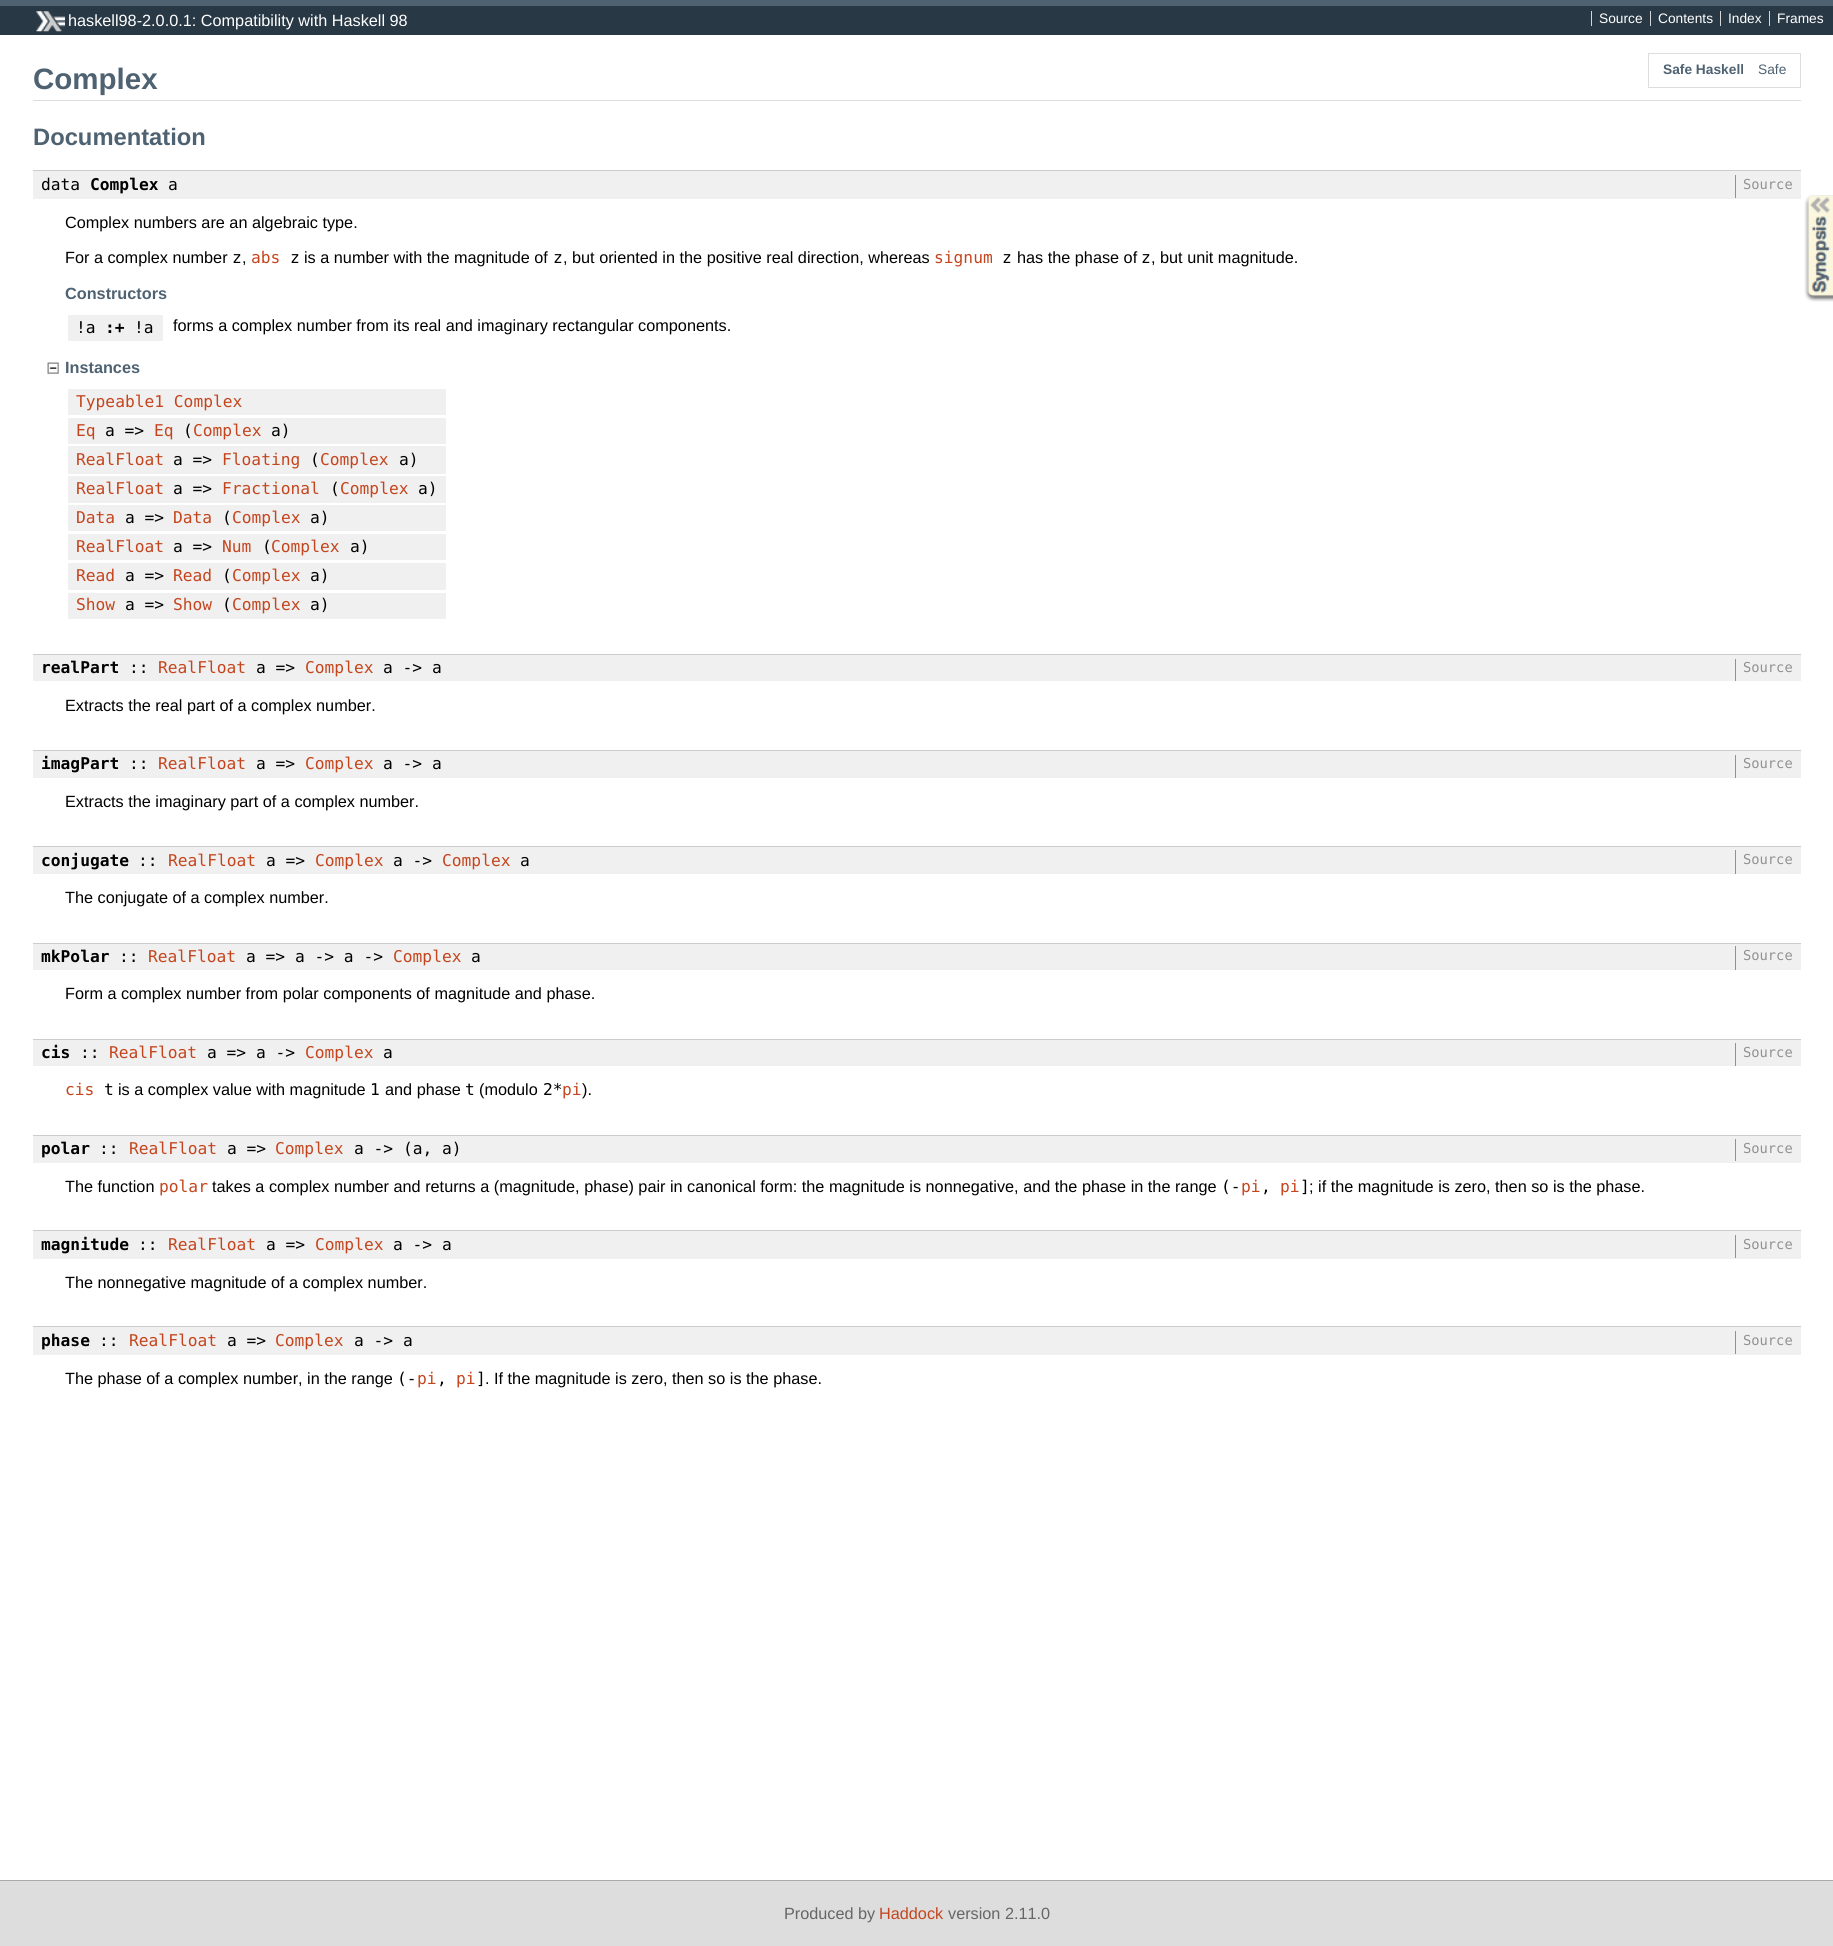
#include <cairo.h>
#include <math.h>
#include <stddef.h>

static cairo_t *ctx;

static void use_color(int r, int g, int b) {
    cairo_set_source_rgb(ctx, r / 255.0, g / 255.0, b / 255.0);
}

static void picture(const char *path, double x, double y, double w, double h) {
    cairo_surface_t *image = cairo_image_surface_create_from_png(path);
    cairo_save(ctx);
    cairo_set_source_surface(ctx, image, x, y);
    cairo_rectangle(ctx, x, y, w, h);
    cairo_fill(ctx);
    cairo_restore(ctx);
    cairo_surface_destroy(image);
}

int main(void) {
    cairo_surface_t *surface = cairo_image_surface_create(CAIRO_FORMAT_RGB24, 1833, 1946);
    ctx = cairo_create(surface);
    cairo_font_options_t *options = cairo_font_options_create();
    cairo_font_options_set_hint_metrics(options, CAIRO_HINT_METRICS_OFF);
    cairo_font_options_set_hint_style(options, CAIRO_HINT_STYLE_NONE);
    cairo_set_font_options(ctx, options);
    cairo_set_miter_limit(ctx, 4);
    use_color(255, 255, 255);
    cairo_paint(ctx);
    use_color(41, 56, 69);
    cairo_rectangle(ctx, 0, 6, 1833, 29);
    cairo_fill(ctx);
    use_color(78, 98, 114);
    cairo_rectangle(ctx, 0, 0, 1833, 6);
    cairo_fill(ctx);
    picture("img1.png", 36, 11, 29, 21);
    cairo_select_font_face(ctx, "Liberation Sans", CAIRO_FONT_SLANT_NORMAL, CAIRO_FONT_WEIGHT_NORMAL);
    cairo_set_font_size(ctx, 16.25);
    use_color(255, 255, 255);
    cairo_move_to(ctx, 68, 26);
    cairo_show_text(ctx, "haskell98-2.0.0.1: Compatibility with Haskell 98");
    cairo_set_font_size(ctx, 13.75);
    cairo_move_to(ctx, 1599, 23);
    cairo_show_text(ctx, "Source");
    use_color(213, 213, 213);
    cairo_rectangle(ctx, 1591, 11, 1, 15);
    cairo_fill(ctx);
    use_color(255, 255, 255);
    cairo_move_to(ctx, 1658, 23);
    cairo_show_text(ctx, "Contents");
    use_color(213, 213, 213);
    cairo_rectangle(ctx, 1650, 11, 1, 15);
    cairo_fill(ctx);
    use_color(255, 255, 255);
    cairo_move_to(ctx, 1728, 23);
    cairo_show_text(ctx, "Index");
    use_color(213, 213, 213);
    cairo_rectangle(ctx, 1720, 11, 1, 15);
    cairo_fill(ctx);
    use_color(255, 255, 255);
    cairo_move_to(ctx, 1777, 23);
    cairo_show_text(ctx, "Frames");
    use_color(213, 213, 213);
    cairo_rectangle(ctx, 1769, 11, 1, 15);
    cairo_fill(ctx);
    use_color(221, 221, 221);
    cairo_rectangle(ctx, 33, 100, 1768, 1);
    cairo_fill(ctx);
    cairo_select_font_face(ctx, "Liberation Sans", CAIRO_FONT_SLANT_NORMAL, CAIRO_FONT_WEIGHT_BOLD);
    cairo_set_font_size(ctx, 29.5);
    use_color(78, 98, 114);
    cairo_move_to(ctx, 33, 89);
    cairo_show_text(ctx, "Complex");
    cairo_rectangle(ctx, 1648.5, 53.5, 152, 34);
    use_color(221, 221, 221);
    cairo_set_line_width(ctx, 1);
    cairo_stroke(ctx);
    cairo_set_font_size(ctx, 13.75);
    use_color(78, 98, 114);
    cairo_move_to(ctx, 1663, 74);
    cairo_show_text(ctx, "Safe Haskell");
    cairo_select_font_face(ctx, "Liberation Sans", CAIRO_FONT_SLANT_NORMAL, CAIRO_FONT_WEIGHT_NORMAL);
    cairo_move_to(ctx, 1758, 74);
    cairo_show_text(ctx, "Safe");
    cairo_select_font_face(ctx, "Liberation Sans", CAIRO_FONT_SLANT_NORMAL, CAIRO_FONT_WEIGHT_BOLD);
    cairo_set_font_size(ctx, 23.75);
    cairo_move_to(ctx, 33, 145);
    cairo_show_text(ctx, "Documentation");
    use_color(240, 240, 240);
    cairo_rectangle(ctx, 33, 171, 1768, 28);
    cairo_fill(ctx);
    use_color(204, 204, 204);
    cairo_rectangle(ctx, 33, 170, 1768, 1);
    cairo_fill(ctx);
    cairo_select_font_face(ctx, "DejaVu Sans Mono", CAIRO_FONT_SLANT_NORMAL, CAIRO_FONT_WEIGHT_NORMAL);
    cairo_set_font_size(ctx, 16.25);
    use_color(0, 0, 0);
    cairo_move_to(ctx, 41, 190);
    cairo_show_text(ctx, "data");
    cairo_select_font_face(ctx, "DejaVu Sans Mono", CAIRO_FONT_SLANT_NORMAL, CAIRO_FONT_WEIGHT_BOLD);
    cairo_move_to(ctx, 90, 190);
    cairo_show_text(ctx, "Complex");
    cairo_select_font_face(ctx, "DejaVu Sans Mono", CAIRO_FONT_SLANT_NORMAL, CAIRO_FONT_WEIGHT_NORMAL);
    cairo_move_to(ctx, 168, 190);
    cairo_show_text(ctx, "a");
    use_color(145, 145, 145);
    cairo_rectangle(ctx, 1735, 175, 1, 23);
    cairo_fill(ctx);
    cairo_set_font_size(ctx, 13.75);
    cairo_move_to(ctx, 1743, 189);
    cairo_show_text(ctx, "Source");
    cairo_select_font_face(ctx, "Liberation Sans", CAIRO_FONT_SLANT_NORMAL, CAIRO_FONT_WEIGHT_NORMAL);
    cairo_set_font_size(ctx, 16.25);
    use_color(0, 0, 0);
    cairo_move_to(ctx, 65, 228);
    cairo_show_text(ctx, "Complex numbers are an algebraic type.");
    cairo_move_to(ctx, 65, 263);
    cairo_show_text(ctx, "For a complex number");
    cairo_select_font_face(ctx, "DejaVu Sans Mono", CAIRO_FONT_SLANT_NORMAL, CAIRO_FONT_WEIGHT_NORMAL);
    cairo_move_to(ctx, 232, 263);
    cairo_show_text(ctx, "z");
    use_color(196, 69, 29);
    cairo_move_to(ctx, 251, 263);
    cairo_show_text(ctx, "abs");
    use_color(0, 0, 0);
    cairo_move_to(ctx, 290, 263);
    cairo_show_text(ctx, "z");
    cairo_select_font_face(ctx, "Liberation Sans", CAIRO_FONT_SLANT_NORMAL, CAIRO_FONT_WEIGHT_NORMAL);
    cairo_move_to(ctx, 304, 263);
    cairo_show_text(ctx, "is a number with the magnitude of");
    cairo_select_font_face(ctx, "DejaVu Sans Mono", CAIRO_FONT_SLANT_NORMAL, CAIRO_FONT_WEIGHT_NORMAL);
    cairo_move_to(ctx, 553, 263);
    cairo_show_text(ctx, "z");
    cairo_select_font_face(ctx, "Liberation Sans", CAIRO_FONT_SLANT_NORMAL, CAIRO_FONT_WEIGHT_NORMAL);
    cairo_move_to(ctx, 563, 263);
    cairo_show_text(ctx, ", but oriented in the positive real direction, whereas");
    cairo_select_font_face(ctx, "DejaVu Sans Mono", CAIRO_FONT_SLANT_NORMAL, CAIRO_FONT_WEIGHT_NORMAL);
    use_color(196, 69, 29);
    cairo_move_to(ctx, 934, 263);
    cairo_show_text(ctx, "signum");
    use_color(0, 0, 0);
    cairo_move_to(ctx, 1002, 263);
    cairo_show_text(ctx, "z");
    cairo_select_font_face(ctx, "Liberation Sans", CAIRO_FONT_SLANT_NORMAL, CAIRO_FONT_WEIGHT_NORMAL);
    cairo_move_to(ctx, 1017, 263);
    cairo_show_text(ctx, "has the phase of");
    cairo_select_font_face(ctx, "DejaVu Sans Mono", CAIRO_FONT_SLANT_NORMAL, CAIRO_FONT_WEIGHT_NORMAL);
    cairo_move_to(ctx, 1141, 263);
    cairo_show_text(ctx, "z");
    cairo_select_font_face(ctx, "Liberation Sans", CAIRO_FONT_SLANT_NORMAL, CAIRO_FONT_WEIGHT_NORMAL);
    cairo_move_to(ctx, 1151, 263);
    cairo_show_text(ctx, ", but unit magnitude.");
    cairo_move_to(ctx, 242, 263);
    cairo_show_text(ctx, ",");
    cairo_select_font_face(ctx, "Liberation Sans", CAIRO_FONT_SLANT_NORMAL, CAIRO_FONT_WEIGHT_BOLD);
    use_color(78, 98, 114);
    cairo_move_to(ctx, 65, 299);
    cairo_show_text(ctx, "Constructors");
    use_color(240, 240, 240);
    cairo_rectangle(ctx, 68, 315, 95, 26);
    cairo_fill(ctx);
    cairo_select_font_face(ctx, "DejaVu Sans Mono", CAIRO_FONT_SLANT_NORMAL, CAIRO_FONT_WEIGHT_NORMAL);
    use_color(0, 0, 0);
    cairo_move_to(ctx, 76, 333);
    cairo_show_text(ctx, "!a");
    cairo_select_font_face(ctx, "DejaVu Sans Mono", CAIRO_FONT_SLANT_NORMAL, CAIRO_FONT_WEIGHT_BOLD);
    cairo_move_to(ctx, 105, 333);
    cairo_show_text(ctx, ":+");
    cairo_select_font_face(ctx, "DejaVu Sans Mono", CAIRO_FONT_SLANT_NORMAL, CAIRO_FONT_WEIGHT_NORMAL);
    cairo_move_to(ctx, 134, 333);
    cairo_show_text(ctx, "!a");
    cairo_select_font_face(ctx, "Liberation Sans", CAIRO_FONT_SLANT_NORMAL, CAIRO_FONT_WEIGHT_NORMAL);
    cairo_move_to(ctx, 173, 331);
    cairo_show_text(ctx, "forms a complex number from its real and imaginary rectangular components.");
    picture("img2.png", 47, 362, 12, 12);
    cairo_select_font_face(ctx, "Liberation Sans", CAIRO_FONT_SLANT_NORMAL, CAIRO_FONT_WEIGHT_BOLD);
    use_color(78, 98, 114);
    cairo_move_to(ctx, 65, 373);
    cairo_show_text(ctx, "Instances");
    use_color(240, 240, 240);
    cairo_rectangle(ctx, 68, 389, 378, 26);
    cairo_fill(ctx);
    cairo_select_font_face(ctx, "DejaVu Sans Mono", CAIRO_FONT_SLANT_NORMAL, CAIRO_FONT_WEIGHT_NORMAL);
    use_color(196, 69, 29);
    cairo_move_to(ctx, 76, 407);
    cairo_show_text(ctx, "Typeable1 Complex");
    use_color(240, 240, 240);
    cairo_rectangle(ctx, 68, 418, 378, 26);
    cairo_fill(ctx);
    use_color(196, 69, 29);
    cairo_move_to(ctx, 76, 436);
    cairo_show_text(ctx, "Eq");
    use_color(0, 0, 0);
    cairo_move_to(ctx, 105, 436);
    cairo_show_text(ctx, "a =>");
    use_color(196, 69, 29);
    cairo_move_to(ctx, 154, 436);
    cairo_show_text(ctx, "Eq");
    use_color(0, 0, 0);
    cairo_move_to(ctx, 183, 436);
    cairo_show_text(ctx, "(");
    use_color(196, 69, 29);
    cairo_move_to(ctx, 193, 436);
    cairo_show_text(ctx, "Complex");
    use_color(0, 0, 0);
    cairo_move_to(ctx, 271, 436);
    cairo_show_text(ctx, "a)");
    use_color(240, 240, 240);
    cairo_rectangle(ctx, 68, 446, 378, 28);
    cairo_fill(ctx);
    use_color(196, 69, 29);
    cairo_move_to(ctx, 76, 465);
    cairo_show_text(ctx, "RealFloat");
    use_color(0, 0, 0);
    cairo_move_to(ctx, 173, 465);
    cairo_show_text(ctx, "a =>");
    use_color(196, 69, 29);
    cairo_move_to(ctx, 222, 465);
    cairo_show_text(ctx, "Floating");
    use_color(0, 0, 0);
    cairo_move_to(ctx, 310, 465);
    cairo_show_text(ctx, "(");
    use_color(196, 69, 29);
    cairo_move_to(ctx, 320, 465);
    cairo_show_text(ctx, "Complex");
    use_color(0, 0, 0);
    cairo_move_to(ctx, 399, 465);
    cairo_show_text(ctx, "a)");
    use_color(240, 240, 240);
    cairo_rectangle(ctx, 68, 476, 378, 27);
    cairo_fill(ctx);
    use_color(196, 69, 29);
    cairo_move_to(ctx, 76, 494);
    cairo_show_text(ctx, "RealFloat");
    use_color(0, 0, 0);
    cairo_move_to(ctx, 173, 494);
    cairo_show_text(ctx, "a =>");
    use_color(196, 69, 29);
    cairo_move_to(ctx, 222, 494);
    cairo_show_text(ctx, "Fractional");
    use_color(0, 0, 0);
    cairo_move_to(ctx, 330, 494);
    cairo_show_text(ctx, "(");
    use_color(196, 69, 29);
    cairo_move_to(ctx, 340, 494);
    cairo_show_text(ctx, "Complex");
    use_color(0, 0, 0);
    cairo_move_to(ctx, 418, 494);
    cairo_show_text(ctx, "a)");
    use_color(240, 240, 240);
    cairo_rectangle(ctx, 68, 505, 378, 26);
    cairo_fill(ctx);
    use_color(196, 69, 29);
    cairo_move_to(ctx, 76, 523);
    cairo_show_text(ctx, "Data");
    use_color(0, 0, 0);
    cairo_move_to(ctx, 125, 523);
    cairo_show_text(ctx, "a =>");
    use_color(196, 69, 29);
    cairo_move_to(ctx, 173, 523);
    cairo_show_text(ctx, "Data");
    use_color(0, 0, 0);
    cairo_move_to(ctx, 222, 523);
    cairo_show_text(ctx, "(");
    use_color(196, 69, 29);
    cairo_move_to(ctx, 232, 523);
    cairo_show_text(ctx, "Complex");
    use_color(0, 0, 0);
    cairo_move_to(ctx, 310, 523);
    cairo_show_text(ctx, "a)");
    use_color(240, 240, 240);
    cairo_rectangle(ctx, 68, 534, 378, 26);
    cairo_fill(ctx);
    use_color(196, 69, 29);
    cairo_move_to(ctx, 76, 552);
    cairo_show_text(ctx, "RealFloat");
    use_color(0, 0, 0);
    cairo_move_to(ctx, 173, 552);
    cairo_show_text(ctx, "a =>");
    use_color(196, 69, 29);
    cairo_move_to(ctx, 222, 552);
    cairo_show_text(ctx, "Num");
    use_color(0, 0, 0);
    cairo_move_to(ctx, 262, 552);
    cairo_show_text(ctx, "(");
    use_color(196, 69, 29);
    cairo_move_to(ctx, 271, 552);
    cairo_show_text(ctx, "Complex");
    use_color(0, 0, 0);
    cairo_move_to(ctx, 350, 552);
    cairo_show_text(ctx, "a)");
    use_color(240, 240, 240);
    cairo_rectangle(ctx, 68, 563, 378, 27);
    cairo_fill(ctx);
    use_color(196, 69, 29);
    cairo_move_to(ctx, 76, 581);
    cairo_show_text(ctx, "Read");
    use_color(0, 0, 0);
    cairo_move_to(ctx, 125, 581);
    cairo_show_text(ctx, "a =>");
    use_color(196, 69, 29);
    cairo_move_to(ctx, 173, 581);
    cairo_show_text(ctx, "Read");
    use_color(0, 0, 0);
    cairo_move_to(ctx, 222, 581);
    cairo_show_text(ctx, "(");
    use_color(196, 69, 29);
    cairo_move_to(ctx, 232, 581);
    cairo_show_text(ctx, "Complex");
    use_color(0, 0, 0);
    cairo_move_to(ctx, 310, 581);
    cairo_show_text(ctx, "a)");
    use_color(240, 240, 240);
    cairo_rectangle(ctx, 68, 593, 378, 26);
    cairo_fill(ctx);
    use_color(196, 69, 29);
    cairo_move_to(ctx, 76, 610);
    cairo_show_text(ctx, "Show");
    use_color(0, 0, 0);
    cairo_move_to(ctx, 125, 610);
    cairo_show_text(ctx, "a =>");
    use_color(196, 69, 29);
    cairo_move_to(ctx, 173, 610);
    cairo_show_text(ctx, "Show");
    use_color(0, 0, 0);
    cairo_move_to(ctx, 222, 610);
    cairo_show_text(ctx, "(");
    use_color(196, 69, 29);
    cairo_move_to(ctx, 232, 610);
    cairo_show_text(ctx, "Complex");
    use_color(0, 0, 0);
    cairo_move_to(ctx, 310, 610);
    cairo_show_text(ctx, "a)");
    use_color(240, 240, 240);
    cairo_rectangle(ctx, 33, 655, 1768, 26);
    cairo_fill(ctx);
    use_color(204, 204, 204);
    cairo_rectangle(ctx, 33, 654, 1768, 1);
    cairo_fill(ctx);
    cairo_select_font_face(ctx, "DejaVu Sans Mono", CAIRO_FONT_SLANT_NORMAL, CAIRO_FONT_WEIGHT_BOLD);
    use_color(0, 0, 0);
    cairo_move_to(ctx, 41, 673);
    cairo_show_text(ctx, "realPart");
    cairo_select_font_face(ctx, "DejaVu Sans Mono", CAIRO_FONT_SLANT_NORMAL, CAIRO_FONT_WEIGHT_NORMAL);
    cairo_move_to(ctx, 129, 673);
    cairo_show_text(ctx, "::");
    use_color(196, 69, 29);
    cairo_move_to(ctx, 158, 673);
    cairo_show_text(ctx, "RealFloat");
    use_color(0, 0, 0);
    cairo_move_to(ctx, 256, 673);
    cairo_show_text(ctx, "a =>");
    use_color(196, 69, 29);
    cairo_move_to(ctx, 305, 673);
    cairo_show_text(ctx, "Complex");
    use_color(0, 0, 0);
    cairo_move_to(ctx, 383, 673);
    cairo_show_text(ctx, "a -> a");
    use_color(145, 145, 145);
    cairo_rectangle(ctx, 1735, 659, 1, 22);
    cairo_fill(ctx);
    cairo_set_font_size(ctx, 13.75);
    cairo_move_to(ctx, 1743, 672);
    cairo_show_text(ctx, "Source");
    cairo_select_font_face(ctx, "Liberation Sans", CAIRO_FONT_SLANT_NORMAL, CAIRO_FONT_WEIGHT_NORMAL);
    cairo_set_font_size(ctx, 16.25);
    use_color(0, 0, 0);
    cairo_move_to(ctx, 65, 711);
    cairo_show_text(ctx, "Extracts the real part of a complex number.");
    use_color(240, 240, 240);
    cairo_rectangle(ctx, 33, 751, 1768, 27);
    cairo_fill(ctx);
    use_color(204, 204, 204);
    cairo_rectangle(ctx, 33, 750, 1768, 1);
    cairo_fill(ctx);
    cairo_select_font_face(ctx, "DejaVu Sans Mono", CAIRO_FONT_SLANT_NORMAL, CAIRO_FONT_WEIGHT_BOLD);
    use_color(0, 0, 0);
    cairo_move_to(ctx, 41, 769);
    cairo_show_text(ctx, "imagPart");
    cairo_select_font_face(ctx, "DejaVu Sans Mono", CAIRO_FONT_SLANT_NORMAL, CAIRO_FONT_WEIGHT_NORMAL);
    cairo_move_to(ctx, 129, 769);
    cairo_show_text(ctx, "::");
    use_color(196, 69, 29);
    cairo_move_to(ctx, 158, 769);
    cairo_show_text(ctx, "RealFloat");
    use_color(0, 0, 0);
    cairo_move_to(ctx, 256, 769);
    cairo_show_text(ctx, "a =>");
    use_color(196, 69, 29);
    cairo_move_to(ctx, 305, 769);
    cairo_show_text(ctx, "Complex");
    use_color(0, 0, 0);
    cairo_move_to(ctx, 383, 769);
    cairo_show_text(ctx, "a -> a");
    use_color(145, 145, 145);
    cairo_rectangle(ctx, 1735, 755, 1, 23);
    cairo_fill(ctx);
    cairo_set_font_size(ctx, 13.75);
    cairo_move_to(ctx, 1743, 768);
    cairo_show_text(ctx, "Source");
    cairo_select_font_face(ctx, "Liberation Sans", CAIRO_FONT_SLANT_NORMAL, CAIRO_FONT_WEIGHT_NORMAL);
    cairo_set_font_size(ctx, 16.25);
    use_color(0, 0, 0);
    cairo_move_to(ctx, 65, 807);
    cairo_show_text(ctx, "Extracts the imaginary part of a complex number.");
    use_color(240, 240, 240);
    cairo_rectangle(ctx, 33, 847, 1768, 27);
    cairo_fill(ctx);
    use_color(204, 204, 204);
    cairo_rectangle(ctx, 33, 846, 1768, 1);
    cairo_fill(ctx);
    cairo_select_font_face(ctx, "DejaVu Sans Mono", CAIRO_FONT_SLANT_NORMAL, CAIRO_FONT_WEIGHT_BOLD);
    use_color(0, 0, 0);
    cairo_move_to(ctx, 41, 866);
    cairo_show_text(ctx, "conjugate");
    cairo_select_font_face(ctx, "DejaVu Sans Mono", CAIRO_FONT_SLANT_NORMAL, CAIRO_FONT_WEIGHT_NORMAL);
    cairo_move_to(ctx, 138, 866);
    cairo_show_text(ctx, "::");
    use_color(196, 69, 29);
    cairo_move_to(ctx, 168, 866);
    cairo_show_text(ctx, "RealFloat");
    use_color(0, 0, 0);
    cairo_move_to(ctx, 266, 866);
    cairo_show_text(ctx, "a =>");
    use_color(196, 69, 29);
    cairo_move_to(ctx, 315, 866);
    cairo_show_text(ctx, "Complex");
    use_color(0, 0, 0);
    cairo_move_to(ctx, 393, 866);
    cairo_show_text(ctx, "a ->");
    use_color(196, 69, 29);
    cairo_move_to(ctx, 442, 866);
    cairo_show_text(ctx, "Complex");
    use_color(0, 0, 0);
    cairo_move_to(ctx, 520, 866);
    cairo_show_text(ctx, "a");
    use_color(145, 145, 145);
    cairo_rectangle(ctx, 1735, 850, 1, 24);
    cairo_fill(ctx);
    cairo_set_font_size(ctx, 13.75);
    cairo_move_to(ctx, 1743, 864);
    cairo_show_text(ctx, "Source");
    cairo_select_font_face(ctx, "Liberation Sans", CAIRO_FONT_SLANT_NORMAL, CAIRO_FONT_WEIGHT_NORMAL);
    cairo_set_font_size(ctx, 16.25);
    use_color(0, 0, 0);
    cairo_move_to(ctx, 65, 903);
    cairo_show_text(ctx, "The conjugate of a complex number.");
    use_color(240, 240, 240);
    cairo_rectangle(ctx, 33, 944, 1768, 26);
    cairo_fill(ctx);
    use_color(204, 204, 204);
    cairo_rectangle(ctx, 33, 943, 1768, 1);
    cairo_fill(ctx);
    cairo_select_font_face(ctx, "DejaVu Sans Mono", CAIRO_FONT_SLANT_NORMAL, CAIRO_FONT_WEIGHT_BOLD);
    use_color(0, 0, 0);
    cairo_move_to(ctx, 41, 962);
    cairo_show_text(ctx, "mkPolar");
    cairo_select_font_face(ctx, "DejaVu Sans Mono", CAIRO_FONT_SLANT_NORMAL, CAIRO_FONT_WEIGHT_NORMAL);
    cairo_move_to(ctx, 119, 962);
    cairo_show_text(ctx, "::");
    use_color(196, 69, 29);
    cairo_move_to(ctx, 148, 962);
    cairo_show_text(ctx, "RealFloat");
    use_color(0, 0, 0);
    cairo_move_to(ctx, 246, 962);
    cairo_show_text(ctx, "a => a -> a ->");
    use_color(196, 69, 29);
    cairo_move_to(ctx, 393, 962);
    cairo_show_text(ctx, "Complex");
    use_color(0, 0, 0);
    cairo_move_to(ctx, 471, 962);
    cairo_show_text(ctx, "a");
    use_color(145, 145, 145);
    cairo_rectangle(ctx, 1735, 946, 1, 24);
    cairo_fill(ctx);
    cairo_set_font_size(ctx, 13.75);
    cairo_move_to(ctx, 1743, 960);
    cairo_show_text(ctx, "Source");
    cairo_select_font_face(ctx, "Liberation Sans", CAIRO_FONT_SLANT_NORMAL, CAIRO_FONT_WEIGHT_NORMAL);
    cairo_set_font_size(ctx, 16.25);
    use_color(0, 0, 0);
    cairo_move_to(ctx, 65, 999);
    cairo_show_text(ctx, "Form a complex number from polar components of magnitude and phase.");
    use_color(240, 240, 240);
    cairo_rectangle(ctx, 33, 1040, 1768, 26);
    cairo_fill(ctx);
    use_color(204, 204, 204);
    cairo_rectangle(ctx, 33, 1039, 1768, 1);
    cairo_fill(ctx);
    cairo_select_font_face(ctx, "DejaVu Sans Mono", CAIRO_FONT_SLANT_NORMAL, CAIRO_FONT_WEIGHT_BOLD);
    use_color(0, 0, 0);
    cairo_move_to(ctx, 41, 1058);
    cairo_show_text(ctx, "cis");
    cairo_select_font_face(ctx, "DejaVu Sans Mono", CAIRO_FONT_SLANT_NORMAL, CAIRO_FONT_WEIGHT_NORMAL);
    cairo_move_to(ctx, 80, 1058);
    cairo_show_text(ctx, "::");
    use_color(196, 69, 29);
    cairo_move_to(ctx, 109, 1058);
    cairo_show_text(ctx, "RealFloat");
    use_color(0, 0, 0);
    cairo_move_to(ctx, 207, 1058);
    cairo_show_text(ctx, "a => a ->");
    use_color(196, 69, 29);
    cairo_move_to(ctx, 305, 1058);
    cairo_show_text(ctx, "Complex");
    use_color(0, 0, 0);
    cairo_move_to(ctx, 383, 1058);
    cairo_show_text(ctx, "a");
    use_color(145, 145, 145);
    cairo_rectangle(ctx, 1735, 1043, 1, 23);
    cairo_fill(ctx);
    cairo_set_font_size(ctx, 13.75);
    cairo_move_to(ctx, 1743, 1057);
    cairo_show_text(ctx, "Source");
    cairo_set_font_size(ctx, 16.25);
    use_color(196, 69, 29);
    cairo_move_to(ctx, 65, 1095);
    cairo_show_text(ctx, "cis");
    use_color(0, 0, 0);
    cairo_move_to(ctx, 104, 1095);
    cairo_show_text(ctx, "t");
    cairo_select_font_face(ctx, "Liberation Sans", CAIRO_FONT_SLANT_NORMAL, CAIRO_FONT_WEIGHT_NORMAL);
    cairo_move_to(ctx, 118, 1095);
    cairo_show_text(ctx, "is a complex value with magnitude");
    cairo_select_font_face(ctx, "DejaVu Sans Mono", CAIRO_FONT_SLANT_NORMAL, CAIRO_FONT_WEIGHT_NORMAL);
    cairo_move_to(ctx, 370, 1095);
    cairo_show_text(ctx, "1");
    cairo_select_font_face(ctx, "Liberation Sans", CAIRO_FONT_SLANT_NORMAL, CAIRO_FONT_WEIGHT_NORMAL);
    cairo_move_to(ctx, 385, 1095);
    cairo_show_text(ctx, "and phase");
    cairo_select_font_face(ctx, "DejaVu Sans Mono", CAIRO_FONT_SLANT_NORMAL, CAIRO_FONT_WEIGHT_NORMAL);
    cairo_move_to(ctx, 465, 1095);
    cairo_show_text(ctx, "t");
    cairo_select_font_face(ctx, "Liberation Sans", CAIRO_FONT_SLANT_NORMAL, CAIRO_FONT_WEIGHT_NORMAL);
    cairo_move_to(ctx, 479, 1095);
    cairo_show_text(ctx, "(modulo");
    cairo_select_font_face(ctx, "DejaVu Sans Mono", CAIRO_FONT_SLANT_NORMAL, CAIRO_FONT_WEIGHT_NORMAL);
    cairo_move_to(ctx, 543, 1095);
    cairo_show_text(ctx, "2*");
    use_color(196, 69, 29);
    cairo_move_to(ctx, 562, 1095);
    cairo_show_text(ctx, "pi");
    cairo_select_font_face(ctx, "Liberation Sans", CAIRO_FONT_SLANT_NORMAL, CAIRO_FONT_WEIGHT_NORMAL);
    use_color(0, 0, 0);
    cairo_move_to(ctx, 582, 1095);
    cairo_show_text(ctx, ").");
    use_color(240, 240, 240);
    cairo_rectangle(ctx, 33, 1136, 1768, 27);
    cairo_fill(ctx);
    use_color(204, 204, 204);
    cairo_rectangle(ctx, 33, 1135, 1768, 1);
    cairo_fill(ctx);
    cairo_select_font_face(ctx, "DejaVu Sans Mono", CAIRO_FONT_SLANT_NORMAL, CAIRO_FONT_WEIGHT_BOLD);
    use_color(0, 0, 0);
    cairo_move_to(ctx, 41, 1154);
    cairo_show_text(ctx, "polar");
    cairo_select_font_face(ctx, "DejaVu Sans Mono", CAIRO_FONT_SLANT_NORMAL, CAIRO_FONT_WEIGHT_NORMAL);
    cairo_move_to(ctx, 99, 1154);
    cairo_show_text(ctx, "::");
    use_color(196, 69, 29);
    cairo_move_to(ctx, 129, 1154);
    cairo_show_text(ctx, "RealFloat");
    use_color(0, 0, 0);
    cairo_move_to(ctx, 227, 1154);
    cairo_show_text(ctx, "a =>");
    use_color(196, 69, 29);
    cairo_move_to(ctx, 275, 1154);
    cairo_show_text(ctx, "Complex");
    use_color(0, 0, 0);
    cairo_move_to(ctx, 354, 1154);
    cairo_show_text(ctx, "a -> (a, a)");
    use_color(145, 145, 145);
    cairo_rectangle(ctx, 1735, 1139, 1, 22);
    cairo_fill(ctx);
    cairo_set_font_size(ctx, 13.75);
    cairo_move_to(ctx, 1743, 1153);
    cairo_show_text(ctx, "Source");
    cairo_select_font_face(ctx, "Liberation Sans", CAIRO_FONT_SLANT_NORMAL, CAIRO_FONT_WEIGHT_NORMAL);
    cairo_set_font_size(ctx, 16.25);
    use_color(0, 0, 0);
    cairo_move_to(ctx, 65, 1192);
    cairo_show_text(ctx, "The function");
    cairo_select_font_face(ctx, "DejaVu Sans Mono", CAIRO_FONT_SLANT_NORMAL, CAIRO_FONT_WEIGHT_NORMAL);
    use_color(196, 69, 29);
    cairo_move_to(ctx, 159, 1192);
    cairo_show_text(ctx, "polar");
    cairo_select_font_face(ctx, "Liberation Sans", CAIRO_FONT_SLANT_NORMAL, CAIRO_FONT_WEIGHT_NORMAL);
    use_color(0, 0, 0);
    cairo_move_to(ctx, 212, 1192);
    cairo_show_text(ctx, "takes a complex number and returns a (magnitude, phase) pair in canonical form: the magnitude is nonnegative, and the phase in the range");
    cairo_select_font_face(ctx, "DejaVu Sans Mono", CAIRO_FONT_SLANT_NORMAL, CAIRO_FONT_WEIGHT_NORMAL);
    cairo_move_to(ctx, 1221, 1192);
    cairo_show_text(ctx, "(-");
    use_color(196, 69, 29);
    cairo_move_to(ctx, 1241, 1192);
    cairo_show_text(ctx, "pi");
    use_color(0, 0, 0);
    cairo_move_to(ctx, 1261, 1192);
    cairo_show_text(ctx, ",");
    use_color(196, 69, 29);
    cairo_move_to(ctx, 1280, 1192);
    cairo_show_text(ctx, "pi");
    use_color(0, 0, 0);
    cairo_move_to(ctx, 1300, 1192);
    cairo_show_text(ctx, "]");
    cairo_select_font_face(ctx, "Liberation Sans", CAIRO_FONT_SLANT_NORMAL, CAIRO_FONT_WEIGHT_NORMAL);
    cairo_move_to(ctx, 1309, 1192);
    cairo_show_text(ctx, "; if the magnitude is zero, then so is the phase.");
    use_color(240, 240, 240);
    cairo_rectangle(ctx, 33, 1231, 1768, 28);
    cairo_fill(ctx);
    use_color(204, 204, 204);
    cairo_rectangle(ctx, 33, 1230, 1768, 1);
    cairo_fill(ctx);
    cairo_select_font_face(ctx, "DejaVu Sans Mono", CAIRO_FONT_SLANT_NORMAL, CAIRO_FONT_WEIGHT_BOLD);
    use_color(0, 0, 0);
    cairo_move_to(ctx, 41, 1250);
    cairo_show_text(ctx, "magnitude");
    cairo_select_font_face(ctx, "DejaVu Sans Mono", CAIRO_FONT_SLANT_NORMAL, CAIRO_FONT_WEIGHT_NORMAL);
    cairo_move_to(ctx, 138, 1250);
    cairo_show_text(ctx, "::");
    use_color(196, 69, 29);
    cairo_move_to(ctx, 168, 1250);
    cairo_show_text(ctx, "RealFloat");
    use_color(0, 0, 0);
    cairo_move_to(ctx, 266, 1250);
    cairo_show_text(ctx, "a =>");
    use_color(196, 69, 29);
    cairo_move_to(ctx, 315, 1250);
    cairo_show_text(ctx, "Complex");
    use_color(0, 0, 0);
    cairo_move_to(ctx, 393, 1250);
    cairo_show_text(ctx, "a -> a");
    use_color(145, 145, 145);
    cairo_rectangle(ctx, 1735, 1235, 1, 23);
    cairo_fill(ctx);
    cairo_set_font_size(ctx, 13.75);
    cairo_move_to(ctx, 1743, 1249);
    cairo_show_text(ctx, "Source");
    cairo_select_font_face(ctx, "Liberation Sans", CAIRO_FONT_SLANT_NORMAL, CAIRO_FONT_WEIGHT_NORMAL);
    cairo_set_font_size(ctx, 16.25);
    use_color(0, 0, 0);
    cairo_move_to(ctx, 65, 1288);
    cairo_show_text(ctx, "The nonnegative magnitude of a complex number.");
    use_color(240, 240, 240);
    cairo_rectangle(ctx, 33, 1327, 1768, 28);
    cairo_fill(ctx);
    use_color(204, 204, 204);
    cairo_rectangle(ctx, 33, 1326, 1768, 1);
    cairo_fill(ctx);
    cairo_select_font_face(ctx, "DejaVu Sans Mono", CAIRO_FONT_SLANT_NORMAL, CAIRO_FONT_WEIGHT_BOLD);
    use_color(0, 0, 0);
    cairo_move_to(ctx, 41, 1346);
    cairo_show_text(ctx, "phase");
    cairo_select_font_face(ctx, "DejaVu Sans Mono", CAIRO_FONT_SLANT_NORMAL, CAIRO_FONT_WEIGHT_NORMAL);
    cairo_move_to(ctx, 99, 1346);
    cairo_show_text(ctx, "::");
    use_color(196, 69, 29);
    cairo_move_to(ctx, 129, 1346);
    cairo_show_text(ctx, "RealFloat");
    use_color(0, 0, 0);
    cairo_move_to(ctx, 227, 1346);
    cairo_show_text(ctx, "a =>");
    use_color(196, 69, 29);
    cairo_move_to(ctx, 275, 1346);
    cairo_show_text(ctx, "Complex");
    use_color(0, 0, 0);
    cairo_move_to(ctx, 354, 1346);
    cairo_show_text(ctx, "a -> a");
    use_color(145, 145, 145);
    cairo_rectangle(ctx, 1735, 1331, 1, 23);
    cairo_fill(ctx);
    cairo_set_font_size(ctx, 13.75);
    cairo_move_to(ctx, 1743, 1345);
    cairo_show_text(ctx, "Source");
    cairo_select_font_face(ctx, "Liberation Sans", CAIRO_FONT_SLANT_NORMAL, CAIRO_FONT_WEIGHT_NORMAL);
    cairo_set_font_size(ctx, 16.25);
    use_color(0, 0, 0);
    cairo_move_to(ctx, 65, 1384);
    cairo_show_text(ctx, "The phase of a complex number, in the range");
    cairo_select_font_face(ctx, "DejaVu Sans Mono", CAIRO_FONT_SLANT_NORMAL, CAIRO_FONT_WEIGHT_NORMAL);
    cairo_move_to(ctx, 397, 1384);
    cairo_show_text(ctx, "(-");
    use_color(196, 69, 29);
    cairo_move_to(ctx, 417, 1384);
    cairo_show_text(ctx, "pi");
    use_color(0, 0, 0);
    cairo_move_to(ctx, 437, 1384);
    cairo_show_text(ctx, ",");
    use_color(196, 69, 29);
    cairo_move_to(ctx, 456, 1384);
    cairo_show_text(ctx, "pi");
    use_color(0, 0, 0);
    cairo_move_to(ctx, 476, 1384);
    cairo_show_text(ctx, "]");
    cairo_select_font_face(ctx, "Liberation Sans", CAIRO_FONT_SLANT_NORMAL, CAIRO_FONT_WEIGHT_NORMAL);
    cairo_move_to(ctx, 485, 1384);
    cairo_show_text(ctx, ". If the magnitude is zero, then so is the phase.");
    picture("img3.png", 1804, 195, 29, 107);
    use_color(221, 221, 221);
    cairo_rectangle(ctx, 0, 1881, 1833, 65);
    cairo_fill(ctx);
    use_color(170, 170, 170);
    cairo_rectangle(ctx, 0, 1880, 1833, 1);
    cairo_fill(ctx);
    use_color(102, 102, 102);
    cairo_move_to(ctx, 784, 1919);
    cairo_show_text(ctx, "Produced by");
    use_color(196, 69, 29);
    cairo_move_to(ctx, 879, 1919);
    cairo_show_text(ctx, "Haddock");
    use_color(102, 102, 102);
    cairo_move_to(ctx, 948, 1919);
    cairo_show_text(ctx, "version 2.11.0");
    cairo_surface_write_to_png(surface, "result.png");
    cairo_font_options_destroy(options);
    cairo_destroy(ctx);
    cairo_surface_destroy(surface);
    return 0;
}
